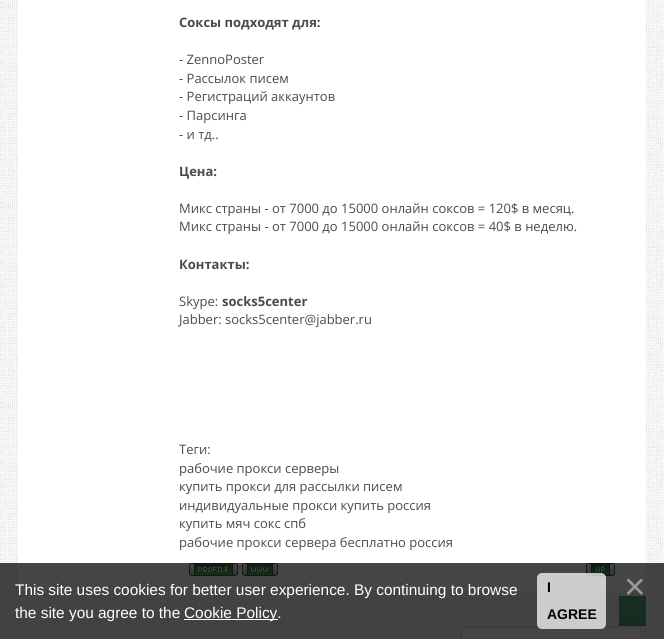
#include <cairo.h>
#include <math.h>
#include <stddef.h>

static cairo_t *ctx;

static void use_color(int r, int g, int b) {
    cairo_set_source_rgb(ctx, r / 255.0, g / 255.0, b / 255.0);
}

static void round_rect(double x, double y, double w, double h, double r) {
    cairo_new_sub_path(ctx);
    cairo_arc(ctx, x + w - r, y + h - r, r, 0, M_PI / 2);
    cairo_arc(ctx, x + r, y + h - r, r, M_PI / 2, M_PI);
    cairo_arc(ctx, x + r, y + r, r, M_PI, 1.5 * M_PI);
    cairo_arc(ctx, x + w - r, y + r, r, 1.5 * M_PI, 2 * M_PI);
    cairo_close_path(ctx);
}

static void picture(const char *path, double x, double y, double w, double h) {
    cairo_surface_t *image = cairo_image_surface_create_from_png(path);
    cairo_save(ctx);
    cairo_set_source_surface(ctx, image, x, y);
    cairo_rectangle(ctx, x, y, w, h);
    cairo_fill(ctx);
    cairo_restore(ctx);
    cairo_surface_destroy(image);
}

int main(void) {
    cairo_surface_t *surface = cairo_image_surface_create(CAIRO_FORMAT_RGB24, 664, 639);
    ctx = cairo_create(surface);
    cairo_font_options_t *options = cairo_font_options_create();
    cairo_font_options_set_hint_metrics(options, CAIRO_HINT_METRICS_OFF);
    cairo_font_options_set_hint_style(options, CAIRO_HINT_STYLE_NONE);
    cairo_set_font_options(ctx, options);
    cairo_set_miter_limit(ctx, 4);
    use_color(255, 255, 255);
    cairo_paint(ctx);
    picture("img1.png", 0, 0, 664, 639);
    use_color(255, 255, 255);
    cairo_rectangle(ctx, 18, 0, 628, 591);
    cairo_fill(ctx);
    cairo_select_font_face(ctx, "Open Sans", CAIRO_FONT_SLANT_NORMAL, CAIRO_FONT_WEIGHT_BOLD);
    cairo_set_font_size(ctx, 13);
    use_color(75, 75, 75);
    cairo_move_to(ctx, 179, 27);
    cairo_show_text(ctx, "Соксы подходят для:");
    cairo_select_font_face(ctx, "Open Sans", CAIRO_FONT_SLANT_NORMAL, CAIRO_FONT_WEIGHT_NORMAL);
    cairo_move_to(ctx, 179, 64);
    cairo_show_text(ctx, "- ZennoPoster");
    cairo_move_to(ctx, 179, 83);
    cairo_show_text(ctx, "- Рассылок писем");
    cairo_move_to(ctx, 179, 101);
    cairo_show_text(ctx, "- Регистраций аккаунтов");
    cairo_move_to(ctx, 179, 120);
    cairo_show_text(ctx, "- Парсинга");
    cairo_move_to(ctx, 179, 139);
    cairo_show_text(ctx, "- и тд..");
    cairo_select_font_face(ctx, "Open Sans", CAIRO_FONT_SLANT_NORMAL, CAIRO_FONT_WEIGHT_BOLD);
    cairo_move_to(ctx, 179, 176);
    cairo_show_text(ctx, "Цена:");
    cairo_select_font_face(ctx, "Open Sans", CAIRO_FONT_SLANT_NORMAL, CAIRO_FONT_WEIGHT_NORMAL);
    cairo_move_to(ctx, 179, 213);
    cairo_show_text(ctx, "Микс страны - от 7000 до 15000 онлайн соксов = 120$ в месяц.");
    cairo_move_to(ctx, 179, 231);
    cairo_show_text(ctx, "Микс страны - от 7000 до 15000 онлайн соксов = 40$ в неделю.");
    cairo_select_font_face(ctx, "Open Sans", CAIRO_FONT_SLANT_NORMAL, CAIRO_FONT_WEIGHT_BOLD);
    cairo_move_to(ctx, 179, 269);
    cairo_show_text(ctx, "Контакты:");
    cairo_select_font_face(ctx, "Open Sans", CAIRO_FONT_SLANT_NORMAL, CAIRO_FONT_WEIGHT_NORMAL);
    cairo_move_to(ctx, 179, 306);
    cairo_show_text(ctx, "Skype:");
    cairo_select_font_face(ctx, "Open Sans", CAIRO_FONT_SLANT_NORMAL, CAIRO_FONT_WEIGHT_BOLD);
    cairo_move_to(ctx, 222, 306);
    cairo_show_text(ctx, "socks5center");
    cairo_select_font_face(ctx, "Open Sans", CAIRO_FONT_SLANT_NORMAL, CAIRO_FONT_WEIGHT_NORMAL);
    cairo_move_to(ctx, 179, 324);
    cairo_show_text(ctx, "Jabber: socks5center@jabber.ru");
    cairo_move_to(ctx, 179, 454);
    cairo_show_text(ctx, "Теги:");
    cairo_move_to(ctx, 179, 473);
    cairo_show_text(ctx, "рабочие прокси серверы");
    cairo_move_to(ctx, 179, 491);
    cairo_show_text(ctx, "купить прокси для рассылки писем");
    cairo_move_to(ctx, 179, 510);
    cairo_show_text(ctx, "индивидуальные прокси купить россия");
    cairo_move_to(ctx, 179, 528);
    cairo_show_text(ctx, "купить мяч сокс спб");
    cairo_move_to(ctx, 179, 547);
    cairo_show_text(ctx, "рабочие прокси сервера бесплатно россия");
    picture("img2.png", 189, 563, 49, 13);
    picture("img3.png", 242, 563, 36, 13);
    picture("img4.png", 586, 563, 29, 13);
    use_color(83, 170, 120);
    cairo_rectangle(ctx, 619, 596, 27, 27);
    cairo_fill(ctx);
    use_color(76, 155, 109);
    cairo_rectangle(ctx, 619, 623, 27, 3);
    cairo_fill(ctx);
    use_color(255, 255, 255);
    cairo_rectangle(ctx, 462, 629, 178, 10);
    cairo_fill(ctx);
    use_color(240, 240, 240);
    cairo_rectangle(ctx, 462, 627, 178, 2);
    cairo_fill(ctx);
    cairo_rectangle(ctx, 461.5, 626.5, 179, 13);
    use_color(225, 225, 225);
    cairo_set_line_width(ctx, 1);
    cairo_stroke(ctx);
    cairo_set_source_rgba(ctx, 0, 0, 0, 0.73);
    cairo_rectangle(ctx, 0, 563, 664, 76);
    cairo_fill(ctx);
    cairo_select_font_face(ctx, "Liberation Sans", CAIRO_FONT_SLANT_NORMAL, CAIRO_FONT_WEIGHT_NORMAL);
    cairo_set_font_size(ctx, 15.4);
    use_color(255, 255, 255);
    cairo_move_to(ctx, 15, 595);
    cairo_show_text(ctx, "This site uses cookies for better user experience. By continuing to browse");
    cairo_move_to(ctx, 15, 618);
    cairo_show_text(ctx, "the site you agree to the");
    cairo_rectangle(ctx, 184, 619, 94, 1);
    cairo_fill(ctx);
    cairo_move_to(ctx, 184, 618);
    cairo_show_text(ctx, "Cookie Policy.");
    cairo_set_source_rgba(ctx, 1, 1, 1, 0.73);
    round_rect(537, 573, 69, 56, 5);
    cairo_fill(ctx);
    cairo_select_font_face(ctx, "Liberation Sans", CAIRO_FONT_SLANT_NORMAL, CAIRO_FONT_WEIGHT_BOLD);
    cairo_set_font_size(ctx, 14);
    use_color(0, 0, 0);
    cairo_move_to(ctx, 547, 592);
    cairo_show_text(ctx, "I");
    cairo_move_to(ctx, 547, 619);
    cairo_show_text(ctx, "AGREE");
    cairo_select_font_face(ctx, "Liberation Sans", CAIRO_FONT_SLANT_NORMAL, CAIRO_FONT_WEIGHT_NORMAL);
    cairo_set_font_size(ctx, 37);
    use_color(153, 153, 153);
    cairo_move_to(ctx, 624, 599);
    cairo_show_text(ctx, "×");
    cairo_surface_write_to_png(surface, "result.png");
    cairo_font_options_destroy(options);
    cairo_destroy(ctx);
    cairo_surface_destroy(surface);
    return 0;
}
